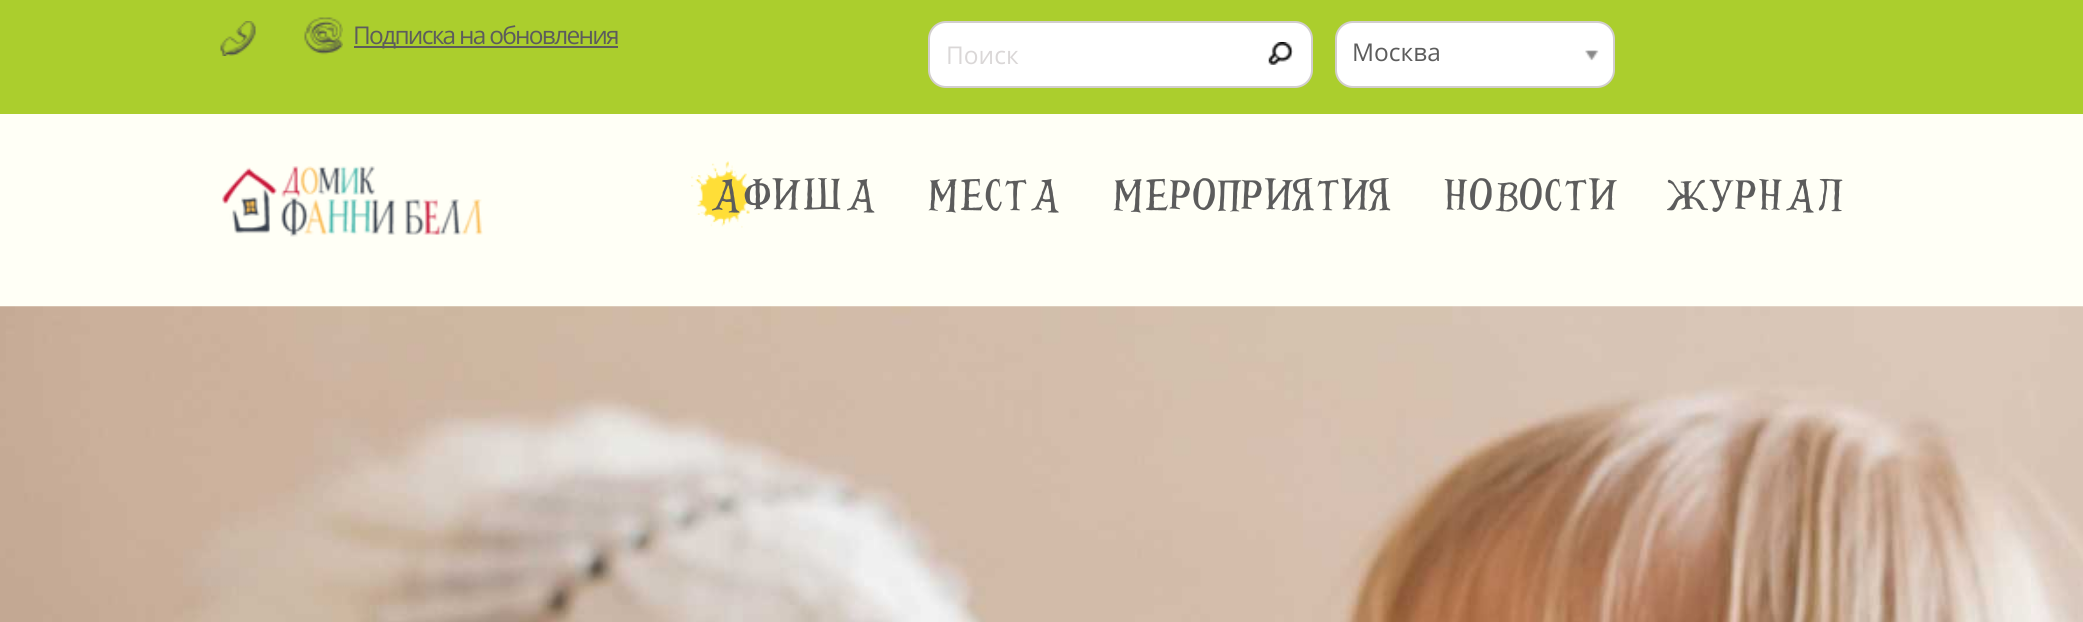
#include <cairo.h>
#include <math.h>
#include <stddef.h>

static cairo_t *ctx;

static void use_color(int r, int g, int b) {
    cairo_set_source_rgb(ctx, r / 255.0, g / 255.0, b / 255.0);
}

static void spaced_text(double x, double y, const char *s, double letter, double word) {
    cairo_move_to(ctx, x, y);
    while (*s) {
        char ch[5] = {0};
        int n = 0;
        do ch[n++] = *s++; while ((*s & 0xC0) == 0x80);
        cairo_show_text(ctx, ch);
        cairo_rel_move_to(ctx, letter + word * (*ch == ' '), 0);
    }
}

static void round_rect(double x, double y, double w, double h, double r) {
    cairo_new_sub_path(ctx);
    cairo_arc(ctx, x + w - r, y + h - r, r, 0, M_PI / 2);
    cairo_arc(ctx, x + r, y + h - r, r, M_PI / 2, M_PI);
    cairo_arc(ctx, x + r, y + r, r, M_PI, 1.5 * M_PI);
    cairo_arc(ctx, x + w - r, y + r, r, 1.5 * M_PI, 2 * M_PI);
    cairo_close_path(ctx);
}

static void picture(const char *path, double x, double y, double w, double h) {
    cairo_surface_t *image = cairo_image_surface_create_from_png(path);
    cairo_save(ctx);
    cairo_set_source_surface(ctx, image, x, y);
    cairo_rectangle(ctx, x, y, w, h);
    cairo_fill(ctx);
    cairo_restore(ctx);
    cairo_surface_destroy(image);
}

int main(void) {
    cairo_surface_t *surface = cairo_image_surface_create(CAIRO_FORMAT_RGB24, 2083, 622);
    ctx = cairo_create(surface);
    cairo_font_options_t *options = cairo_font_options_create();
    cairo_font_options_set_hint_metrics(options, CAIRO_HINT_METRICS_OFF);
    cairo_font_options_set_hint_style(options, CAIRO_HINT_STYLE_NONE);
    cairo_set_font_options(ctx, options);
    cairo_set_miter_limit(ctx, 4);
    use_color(255, 255, 246);
    cairo_paint(ctx);
    use_color(171, 206, 45);
    cairo_rectangle(ctx, 0, 0, 2083, 114);
    cairo_fill(ctx);
    picture("img1.png", 220, 21, 36, 35);
    picture("img2.png", 304, 17, 39, 38);
    use_color(92, 92, 92);
    cairo_rectangle(ctx, 354, 46, 264, 2);
    cairo_fill(ctx);
    cairo_select_font_face(ctx, "Open Sans", CAIRO_FONT_SLANT_NORMAL, CAIRO_FONT_WEIGHT_NORMAL);
    cairo_set_font_size(ctx, 24.5);
    spaced_text(353, 44, "Подписка на обновления", -1.75, 0);
    use_color(255, 255, 255);
    round_rect(929, 22, 383, 65, 17);
    cairo_fill_preserve(ctx);
    use_color(210, 206, 206);
    cairo_stroke(ctx);
    use_color(218, 215, 215);
    cairo_move_to(ctx, 946, 64);
    cairo_show_text(ctx, "Поиск");
    picture("img3.png", 1268, 42, 26, 23);
    use_color(255, 255, 255);
    round_rect(1336, 22, 278, 65, 17);
    cairo_fill_preserve(ctx);
    use_color(210, 206, 206);
    cairo_stroke(ctx);
    use_color(92, 92, 92);
    cairo_move_to(ctx, 1352, 61);
    cairo_show_text(ctx, "Москва");
    picture("img4.png", 1585, 50, 14, 11);
    picture("img5.png", 222, 166, 261, 71);
    picture("img6.png", 691, 161, 67, 67);
    cairo_select_font_face(ctx, "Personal", CAIRO_FONT_SLANT_NORMAL, CAIRO_FONT_WEIGHT_NORMAL);
    cairo_set_font_size(ctx, 56);
    cairo_move_to(ctx, 709, 210);
    cairo_show_text(ctx, "АФИША");
    cairo_move_to(ctx, 928, 210);
    cairo_show_text(ctx, "МЕСТА");
    cairo_move_to(ctx, 1113, 210);
    cairo_show_text(ctx, "МЕРОПРИЯТИЯ");
    cairo_move_to(ctx, 1443, 210);
    cairo_show_text(ctx, "НОВОСТИ");
    cairo_move_to(ctx, 1667, 210);
    cairo_show_text(ctx, "ЖУРНАЛ");
    picture("img7.png", 0, 306, 2083, 316);
    cairo_surface_write_to_png(surface, "result.png");
    cairo_font_options_destroy(options);
    cairo_destroy(ctx);
    cairo_surface_destroy(surface);
    return 0;
}
